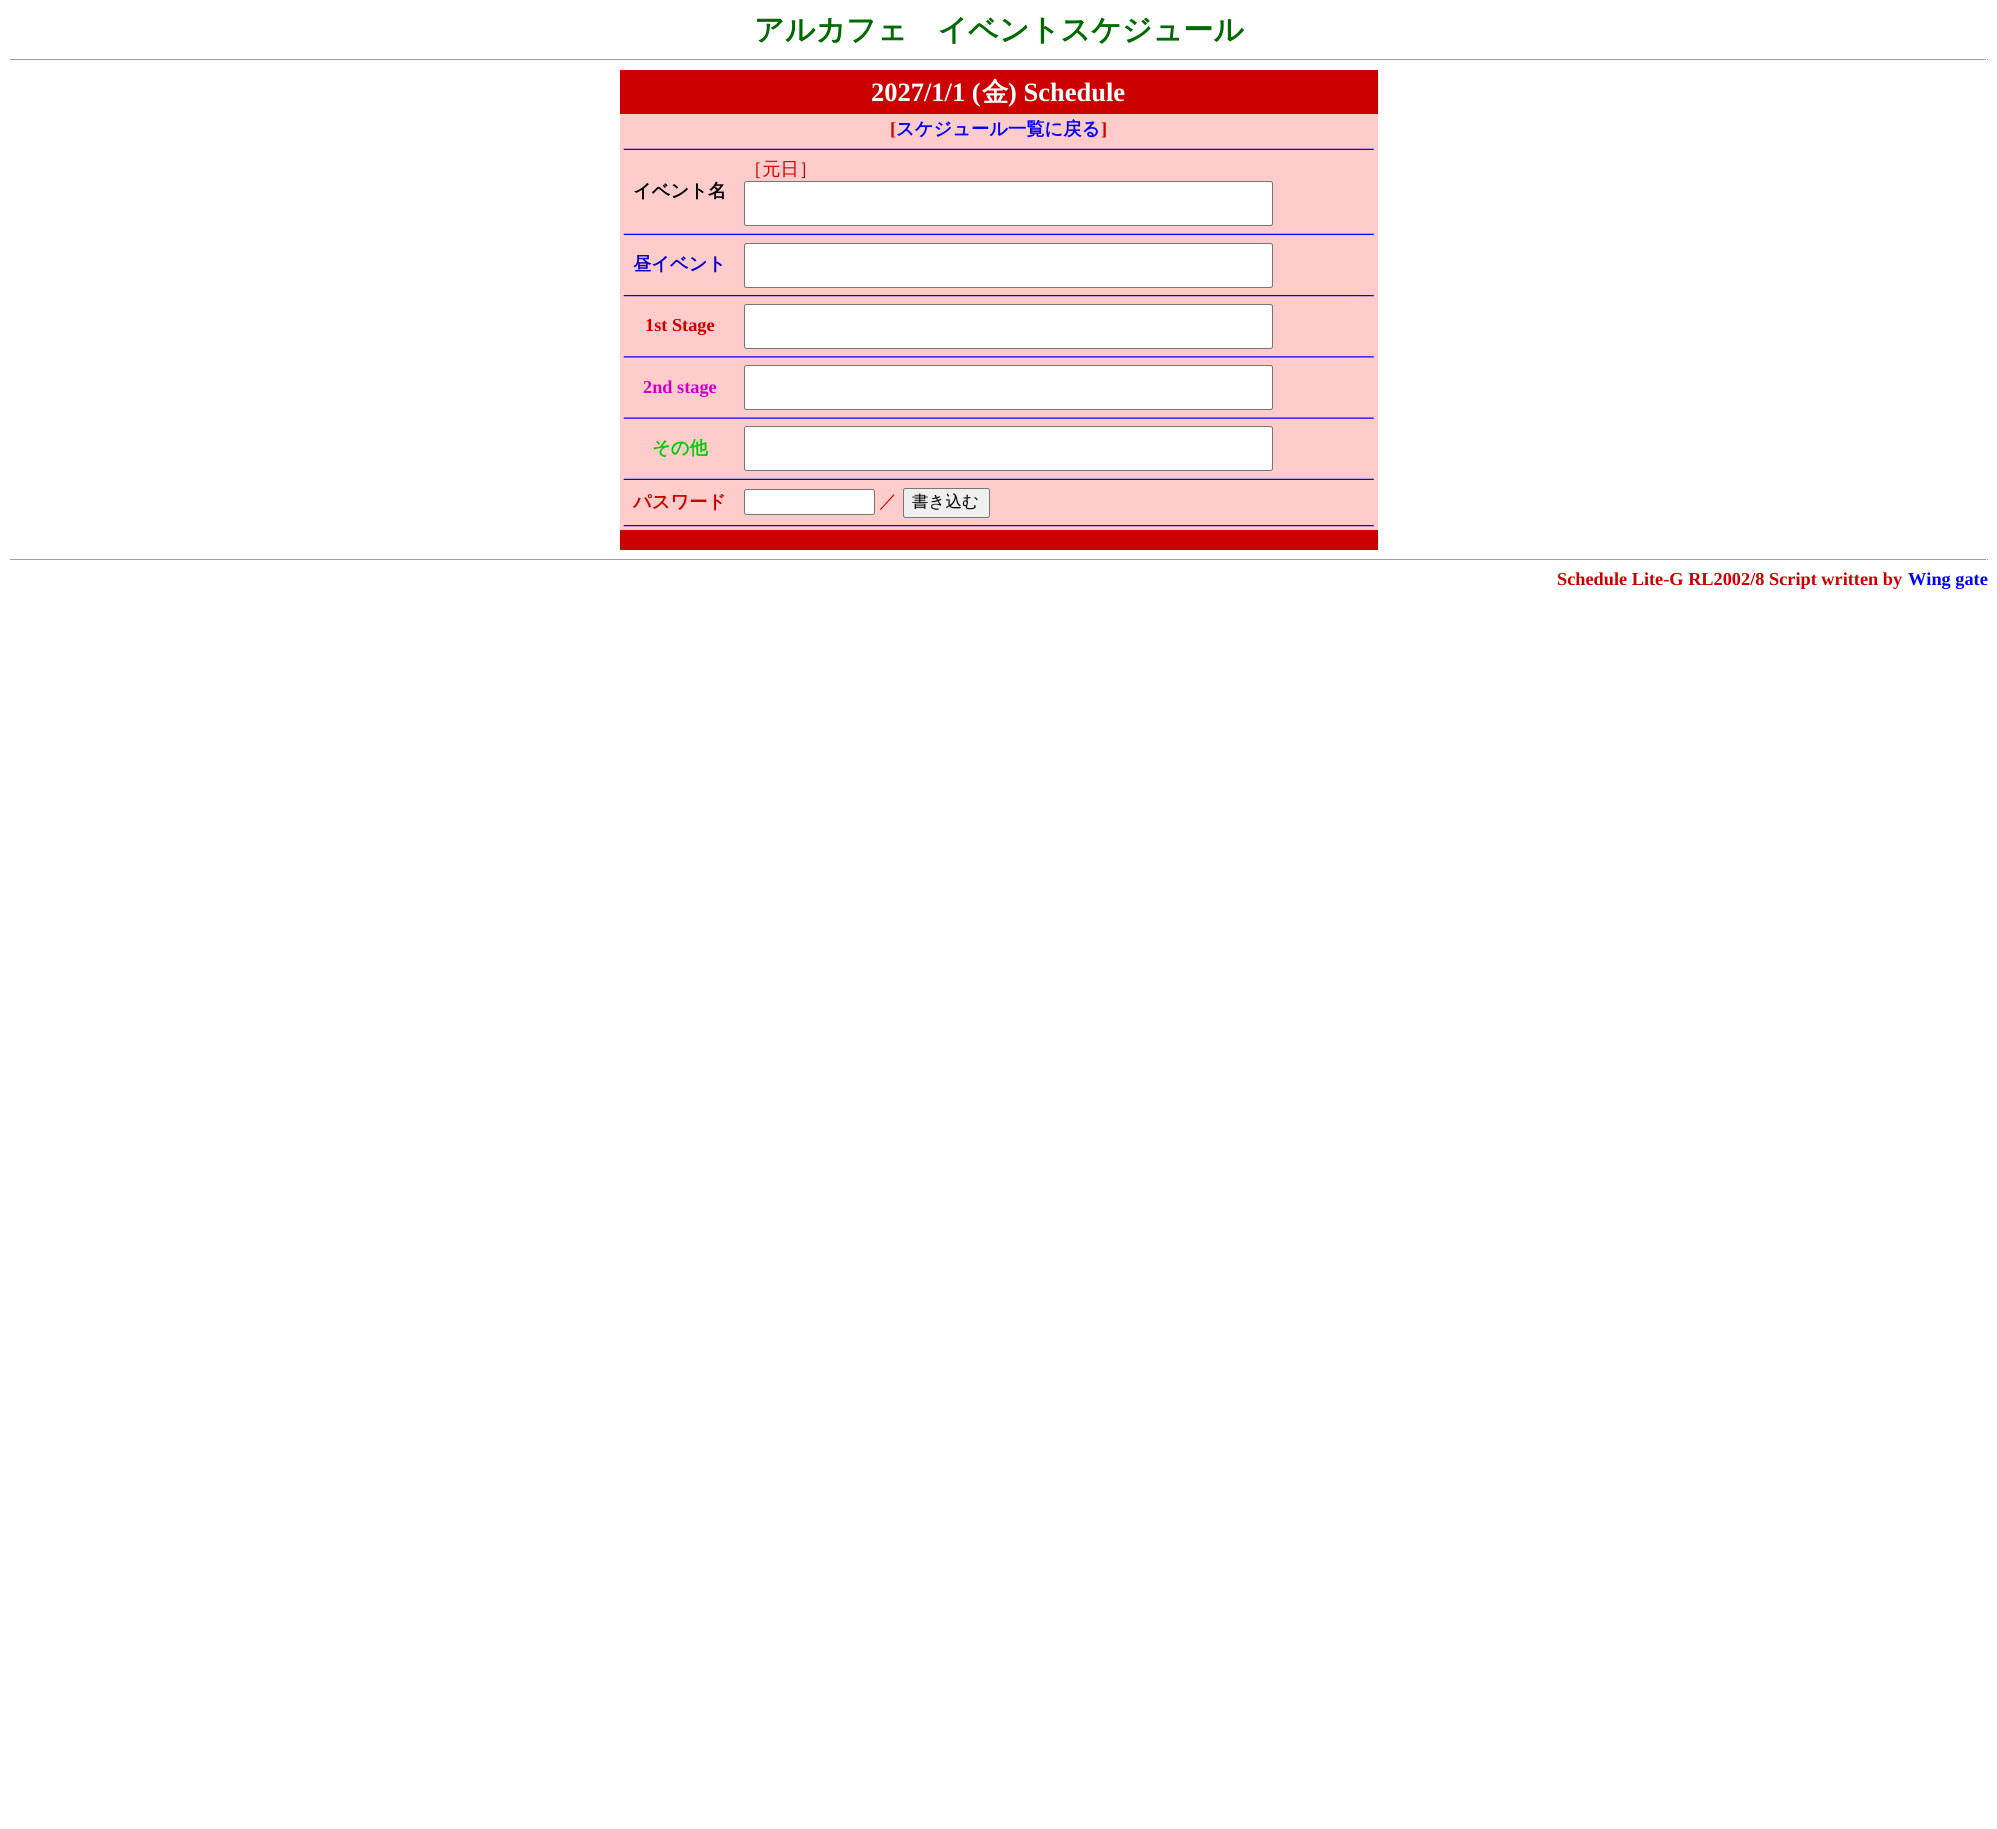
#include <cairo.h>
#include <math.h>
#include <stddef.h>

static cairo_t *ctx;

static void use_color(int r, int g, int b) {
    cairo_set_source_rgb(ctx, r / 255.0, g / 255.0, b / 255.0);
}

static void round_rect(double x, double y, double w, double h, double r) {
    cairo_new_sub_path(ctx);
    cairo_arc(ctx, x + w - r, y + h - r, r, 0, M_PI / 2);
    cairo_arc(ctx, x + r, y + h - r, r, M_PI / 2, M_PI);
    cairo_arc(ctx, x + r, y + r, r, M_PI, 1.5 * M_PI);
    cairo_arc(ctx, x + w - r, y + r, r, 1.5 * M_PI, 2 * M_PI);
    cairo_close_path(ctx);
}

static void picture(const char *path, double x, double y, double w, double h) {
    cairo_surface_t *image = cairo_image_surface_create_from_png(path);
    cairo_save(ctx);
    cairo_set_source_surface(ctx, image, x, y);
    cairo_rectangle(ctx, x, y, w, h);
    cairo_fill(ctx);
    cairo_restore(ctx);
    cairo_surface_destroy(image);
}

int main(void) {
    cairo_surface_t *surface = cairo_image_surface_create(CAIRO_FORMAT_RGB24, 1997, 1829);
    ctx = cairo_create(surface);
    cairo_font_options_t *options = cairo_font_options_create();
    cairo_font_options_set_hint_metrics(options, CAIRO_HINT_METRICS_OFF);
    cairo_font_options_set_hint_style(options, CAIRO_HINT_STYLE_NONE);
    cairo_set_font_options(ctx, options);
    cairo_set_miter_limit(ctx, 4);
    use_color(255, 255, 255);
    cairo_paint(ctx);
    cairo_select_font_face(ctx, "WenQuanYi Zen Hei", CAIRO_FONT_SLANT_NORMAL, CAIRO_FONT_WEIGHT_BOLD);
    cairo_set_font_size(ctx, 30);
    use_color(0, 106, 0);
    cairo_move_to(ctx, 754, 40);
    cairo_show_text(ctx, "アルカフェ　イベントスケジュール");
    use_color(159, 159, 159);
    cairo_rectangle(ctx, 10, 59, 1978, 1);
    cairo_fill(ctx);
    use_color(238, 238, 238);
    cairo_rectangle(ctx, 1986, 59, 1, 1);
    cairo_fill(ctx);
    use_color(204, 0, 0);
    cairo_rectangle(ctx, 620, 70, 758, 44);
    cairo_fill(ctx);
    cairo_select_font_face(ctx, "Liberation Serif", CAIRO_FONT_SLANT_NORMAL, CAIRO_FONT_WEIGHT_BOLD);
    cairo_set_font_size(ctx, 26.5);
    use_color(255, 255, 255);
    cairo_move_to(ctx, 871, 101);
    cairo_show_text(ctx, "2027/1/1 (");
    cairo_select_font_face(ctx, "WenQuanYi Zen Hei", CAIRO_FONT_SLANT_NORMAL, CAIRO_FONT_WEIGHT_BOLD);
    cairo_move_to(ctx, 982, 101);
    cairo_show_text(ctx, "金");
    cairo_select_font_face(ctx, "Liberation Serif", CAIRO_FONT_SLANT_NORMAL, CAIRO_FONT_WEIGHT_BOLD);
    cairo_move_to(ctx, 1008, 101);
    cairo_show_text(ctx, ") Schedule");
    use_color(255, 204, 204);
    cairo_rectangle(ctx, 620, 114, 758, 416);
    cairo_fill(ctx);
    cairo_set_font_size(ctx, 18.3);
    use_color(204, 0, 0);
    cairo_move_to(ctx, 890, 135);
    cairo_show_text(ctx, "[");
    cairo_select_font_face(ctx, "WenQuanYi Zen Hei", CAIRO_FONT_SLANT_NORMAL, CAIRO_FONT_WEIGHT_BOLD);
    use_color(0, 0, 255);
    cairo_move_to(ctx, 896, 135);
    cairo_show_text(ctx, "スケジュール一覧に戻る");
    cairo_select_font_face(ctx, "Liberation Serif", CAIRO_FONT_SLANT_NORMAL, CAIRO_FONT_WEIGHT_BOLD);
    use_color(204, 0, 0);
    cairo_move_to(ctx, 1101, 135);
    cairo_show_text(ctx, "]");
    picture("img1.png", 623, 148, 751, 2);
    cairo_select_font_face(ctx, "WenQuanYi Zen Hei Medium", CAIRO_FONT_SLANT_NORMAL, CAIRO_FONT_WEIGHT_NORMAL);
    cairo_move_to(ctx, 744, 175);
    cairo_show_text(ctx, "［元日］");
    use_color(255, 255, 255);
    round_rect(744.5, 181.5, 528, 44, 2);
    cairo_fill_preserve(ctx);
    use_color(118, 118, 118);
    cairo_set_line_width(ctx, 1);
    cairo_stroke(ctx);
    cairo_select_font_face(ctx, "WenQuanYi Zen Hei", CAIRO_FONT_SLANT_NORMAL, CAIRO_FONT_WEIGHT_BOLD);
    use_color(0, 0, 0);
    cairo_move_to(ctx, 633, 197);
    cairo_show_text(ctx, "イベント名");
    picture("img1.png", 623, 233, 751, 2);
    use_color(0, 0, 204);
    cairo_move_to(ctx, 633, 270);
    cairo_show_text(ctx, "昼イベント");
    use_color(255, 255, 255);
    round_rect(744.5, 243.5, 528, 44, 2);
    cairo_fill_preserve(ctx);
    use_color(118, 118, 118);
    cairo_stroke(ctx);
    picture("img2.png", 623, 295, 751, 2);
    cairo_select_font_face(ctx, "Liberation Serif", CAIRO_FONT_SLANT_NORMAL, CAIRO_FONT_WEIGHT_BOLD);
    use_color(204, 0, 0);
    cairo_move_to(ctx, 645, 331);
    cairo_show_text(ctx, "1st Stage");
    use_color(255, 255, 255);
    round_rect(744.5, 304.5, 528, 44, 2);
    cairo_fill_preserve(ctx);
    use_color(118, 118, 118);
    cairo_stroke(ctx);
    picture("img3.png", 623, 356, 751, 2);
    use_color(204, 0, 204);
    cairo_move_to(ctx, 643, 393);
    cairo_show_text(ctx, "2nd stage");
    use_color(255, 255, 255);
    round_rect(744.5, 365.5, 528, 44, 2);
    cairo_fill_preserve(ctx);
    use_color(118, 118, 118);
    cairo_stroke(ctx);
    picture("img4.png", 623, 417, 751, 2);
    cairo_select_font_face(ctx, "WenQuanYi Zen Hei", CAIRO_FONT_SLANT_NORMAL, CAIRO_FONT_WEIGHT_BOLD);
    use_color(0, 204, 0);
    cairo_move_to(ctx, 652, 454);
    cairo_show_text(ctx, "その他");
    use_color(255, 255, 255);
    round_rect(744.5, 426.5, 528, 44, 2);
    cairo_fill_preserve(ctx);
    use_color(118, 118, 118);
    cairo_stroke(ctx);
    picture("img1.png", 623, 478, 751, 2);
    use_color(204, 0, 0);
    cairo_move_to(ctx, 633, 508);
    cairo_show_text(ctx, "パスワード");
    use_color(255, 255, 255);
    round_rect(744.5, 489.5, 130, 25, 2);
    cairo_fill_preserve(ctx);
    use_color(118, 118, 118);
    cairo_stroke(ctx);
    cairo_select_font_face(ctx, "WenQuanYi Zen Hei Medium", CAIRO_FONT_SLANT_NORMAL, CAIRO_FONT_WEIGHT_NORMAL);
    use_color(204, 0, 0);
    cairo_move_to(ctx, 879, 507);
    cairo_show_text(ctx, "／");
    use_color(239, 239, 239);
    round_rect(903.5, 488.5, 86, 29, 2);
    cairo_fill_preserve(ctx);
    use_color(118, 118, 118);
    cairo_stroke(ctx);
    cairo_set_font_size(ctx, 16.5);
    use_color(0, 0, 0);
    cairo_move_to(ctx, 912, 507);
    cairo_show_text(ctx, "書き込む");
    picture("img2.png", 623, 525, 751, 2);
    use_color(204, 0, 0);
    cairo_rectangle(ctx, 620, 530, 758, 20);
    cairo_fill(ctx);
    use_color(159, 159, 159);
    cairo_rectangle(ctx, 10, 559, 1978, 1);
    cairo_fill(ctx);
    use_color(238, 238, 238);
    cairo_rectangle(ctx, 1986, 559, 1, 1);
    cairo_fill(ctx);
    cairo_select_font_face(ctx, "Liberation Serif", CAIRO_FONT_SLANT_NORMAL, CAIRO_FONT_WEIGHT_BOLD);
    cairo_set_font_size(ctx, 18.3);
    use_color(204, 0, 0);
    cairo_move_to(ctx, 1557, 585);
    cairo_show_text(ctx, "Schedule Lite-G RL2002/8 Script written by");
    use_color(0, 0, 255);
    cairo_move_to(ctx, 1908, 585);
    cairo_show_text(ctx, "Wing gate");
    cairo_surface_write_to_png(surface, "result.png");
    cairo_font_options_destroy(options);
    cairo_destroy(ctx);
    cairo_surface_destroy(surface);
    return 0;
}
